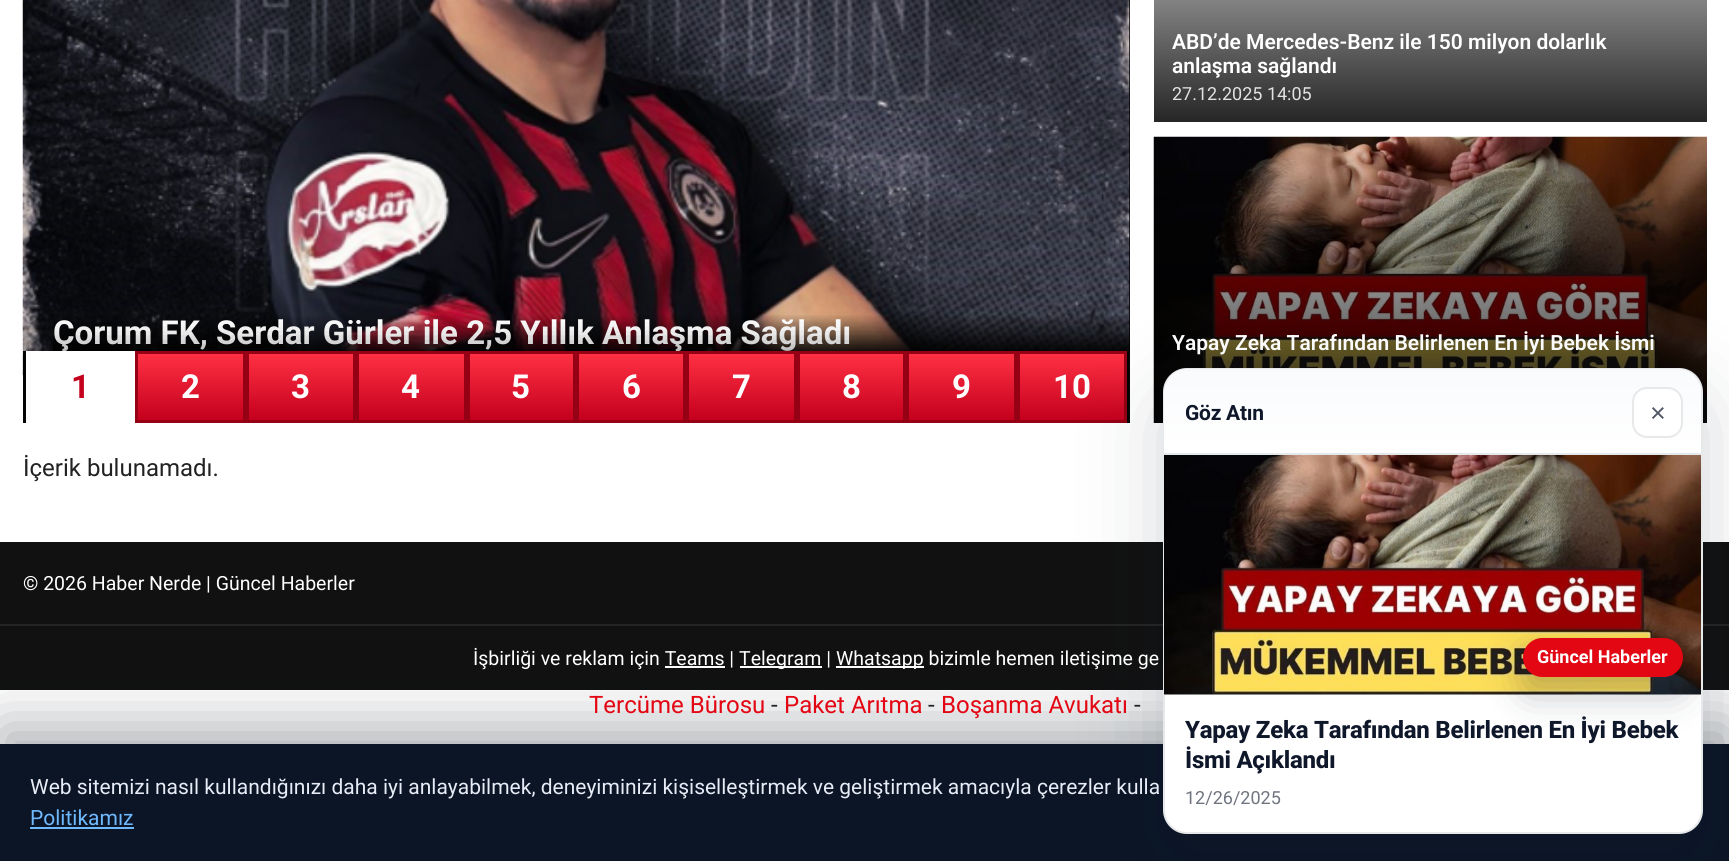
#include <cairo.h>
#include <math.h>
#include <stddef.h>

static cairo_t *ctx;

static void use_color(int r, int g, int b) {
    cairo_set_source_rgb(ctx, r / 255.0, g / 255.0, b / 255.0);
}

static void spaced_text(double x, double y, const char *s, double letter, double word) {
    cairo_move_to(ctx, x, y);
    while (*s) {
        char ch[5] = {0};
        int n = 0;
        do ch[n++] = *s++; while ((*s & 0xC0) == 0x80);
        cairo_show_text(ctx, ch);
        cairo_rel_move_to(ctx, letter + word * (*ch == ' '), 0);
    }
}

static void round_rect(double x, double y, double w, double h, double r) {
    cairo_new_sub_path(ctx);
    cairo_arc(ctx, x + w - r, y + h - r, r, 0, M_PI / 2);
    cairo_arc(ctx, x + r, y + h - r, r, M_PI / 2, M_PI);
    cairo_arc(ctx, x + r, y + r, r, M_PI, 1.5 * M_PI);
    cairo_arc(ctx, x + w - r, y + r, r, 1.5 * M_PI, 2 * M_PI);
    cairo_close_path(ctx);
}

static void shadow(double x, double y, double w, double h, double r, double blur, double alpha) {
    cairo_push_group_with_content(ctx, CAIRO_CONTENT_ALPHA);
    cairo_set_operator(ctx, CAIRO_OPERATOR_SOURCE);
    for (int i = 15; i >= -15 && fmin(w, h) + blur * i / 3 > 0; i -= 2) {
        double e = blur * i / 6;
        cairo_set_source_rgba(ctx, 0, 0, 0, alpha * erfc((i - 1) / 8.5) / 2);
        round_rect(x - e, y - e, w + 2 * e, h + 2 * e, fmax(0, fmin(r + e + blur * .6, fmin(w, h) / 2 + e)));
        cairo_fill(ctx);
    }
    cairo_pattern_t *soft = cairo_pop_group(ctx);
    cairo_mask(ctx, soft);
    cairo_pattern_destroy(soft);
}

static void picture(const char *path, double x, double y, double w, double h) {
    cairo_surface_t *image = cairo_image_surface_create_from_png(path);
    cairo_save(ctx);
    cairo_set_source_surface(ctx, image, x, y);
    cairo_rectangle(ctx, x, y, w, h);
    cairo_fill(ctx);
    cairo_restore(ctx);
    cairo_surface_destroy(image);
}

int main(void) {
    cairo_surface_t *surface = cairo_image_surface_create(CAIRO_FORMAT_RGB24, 1729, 861);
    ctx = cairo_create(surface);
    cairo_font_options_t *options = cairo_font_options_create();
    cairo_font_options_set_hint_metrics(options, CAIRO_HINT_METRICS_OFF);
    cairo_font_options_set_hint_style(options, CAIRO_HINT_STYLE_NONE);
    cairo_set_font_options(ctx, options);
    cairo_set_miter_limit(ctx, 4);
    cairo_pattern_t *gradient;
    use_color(255, 255, 255);
    cairo_paint(ctx);
    use_color(0, 0, 0);
    cairo_rectangle(ctx, 1129, 0, 1, 351);
    cairo_fill(ctx);
    picture("img1.png", 22, 0, 1108, 375);
    gradient = cairo_pattern_create_linear(591, 351, 591, 314);
    cairo_pattern_add_color_stop_rgba(gradient, 0, 0, 0, 0, 0.85);
    cairo_pattern_add_color_stop_rgba(gradient, 1, 0, 0, 0, 0);
    cairo_set_source(ctx, gradient);
    cairo_pattern_destroy(gradient);
    cairo_rectangle(ctx, 53, 315, 1077, 36);
    cairo_fill(ctx);
    cairo_select_font_face(ctx, "Roboto", CAIRO_FONT_SLANT_NORMAL, CAIRO_FONT_WEIGHT_BOLD);
    cairo_set_font_size(ctx, 33);
    use_color(255, 255, 255);
    cairo_move_to(ctx, 53, 344);
    cairo_show_text(ctx, "Çorum FK, Serdar Gürler ile 2,5 Yıllık Anlaşma Sağladı");
    picture("img2.png", 1153, 136, 554, 287);
    cairo_save(ctx);
    cairo_rectangle(ctx, 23, 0, 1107, 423);
    cairo_clip(ctx);
    use_color(0, 0, 0);
    shadow(23, 342, 1107, 72, 0, 13.5, 0.35);
    cairo_restore(ctx);
    use_color(5, 5, 5);
    cairo_rectangle(ctx, 23, 351, 1107, 72);
    cairo_fill(ctx);
    use_color(255, 255, 255);
    cairo_rectangle(ctx, 26, 351, 109, 72);
    cairo_fill(ctx);
    use_color(196, 0, 29);
    cairo_move_to(ctx, 71, 398);
    cairo_show_text(ctx, "1");
    gradient = cairo_pattern_create_linear(191, 354, 191, 420);
    cairo_pattern_add_color_stop_rgba(gradient, 0, 1, 0.188, 0.263, 1);
    cairo_pattern_add_color_stop_rgba(gradient, 1, 0.769, 0, 0.114, 1);
    cairo_set_source(ctx, gradient);
    cairo_pattern_destroy(gradient);
    cairo_rectangle(ctx, 138, 354, 105, 66);
    cairo_fill(ctx);
    cairo_rectangle(ctx, 136.5, 352.5, 108, 69);
    use_color(149, 0, 20);
    cairo_set_line_width(ctx, 3);
    cairo_stroke(ctx);
    use_color(255, 255, 255);
    cairo_move_to(ctx, 181, 398);
    cairo_show_text(ctx, "2");
    gradient = cairo_pattern_create_linear(301, 354, 301, 420);
    cairo_pattern_add_color_stop_rgba(gradient, 0, 1, 0.188, 0.263, 1);
    cairo_pattern_add_color_stop_rgba(gradient, 1, 0.769, 0, 0.114, 1);
    cairo_set_source(ctx, gradient);
    cairo_pattern_destroy(gradient);
    cairo_rectangle(ctx, 249, 354, 104, 66);
    cairo_fill(ctx);
    cairo_rectangle(ctx, 247.5, 352.5, 107, 69);
    use_color(149, 0, 20);
    cairo_stroke(ctx);
    use_color(255, 255, 255);
    cairo_move_to(ctx, 291, 398);
    cairo_show_text(ctx, "3");
    gradient = cairo_pattern_create_linear(411, 354, 411, 420);
    cairo_pattern_add_color_stop_rgba(gradient, 0, 1, 0.188, 0.263, 1);
    cairo_pattern_add_color_stop_rgba(gradient, 1, 0.769, 0, 0.114, 1);
    cairo_set_source(ctx, gradient);
    cairo_pattern_destroy(gradient);
    cairo_rectangle(ctx, 359, 354, 105, 66);
    cairo_fill(ctx);
    cairo_rectangle(ctx, 357.5, 352.5, 108, 69);
    use_color(149, 0, 20);
    cairo_stroke(ctx);
    use_color(255, 255, 255);
    cairo_move_to(ctx, 401, 398);
    cairo_show_text(ctx, "4");
    gradient = cairo_pattern_create_linear(521, 354, 521, 420);
    cairo_pattern_add_color_stop_rgba(gradient, 0, 1, 0.188, 0.263, 1);
    cairo_pattern_add_color_stop_rgba(gradient, 1, 0.769, 0, 0.114, 1);
    cairo_set_source(ctx, gradient);
    cairo_pattern_destroy(gradient);
    cairo_rectangle(ctx, 470, 354, 103, 66);
    cairo_fill(ctx);
    cairo_rectangle(ctx, 468.5, 352.5, 106, 69);
    use_color(149, 0, 20);
    cairo_stroke(ctx);
    use_color(255, 255, 255);
    cairo_move_to(ctx, 511, 398);
    cairo_show_text(ctx, "5");
    gradient = cairo_pattern_create_linear(631, 354, 631, 420);
    cairo_pattern_add_color_stop_rgba(gradient, 0, 1, 0.188, 0.263, 1);
    cairo_pattern_add_color_stop_rgba(gradient, 1, 0.769, 0, 0.114, 1);
    cairo_set_source(ctx, gradient);
    cairo_pattern_destroy(gradient);
    cairo_rectangle(ctx, 579, 354, 104, 66);
    cairo_fill(ctx);
    cairo_rectangle(ctx, 577.5, 352.5, 107, 69);
    use_color(149, 0, 20);
    cairo_stroke(ctx);
    use_color(255, 255, 255);
    cairo_move_to(ctx, 622, 398);
    cairo_show_text(ctx, "6");
    gradient = cairo_pattern_create_linear(741, 354, 741, 420);
    cairo_pattern_add_color_stop_rgba(gradient, 0, 1, 0.188, 0.263, 1);
    cairo_pattern_add_color_stop_rgba(gradient, 1, 0.769, 0, 0.114, 1);
    cairo_set_source(ctx, gradient);
    cairo_pattern_destroy(gradient);
    cairo_rectangle(ctx, 689, 354, 105, 66);
    cairo_fill(ctx);
    cairo_rectangle(ctx, 687.5, 352.5, 108, 69);
    use_color(149, 0, 20);
    cairo_stroke(ctx);
    use_color(255, 255, 255);
    cairo_move_to(ctx, 732, 398);
    cairo_show_text(ctx, "7");
    gradient = cairo_pattern_create_linear(851, 354, 851, 420);
    cairo_pattern_add_color_stop_rgba(gradient, 0, 1, 0.188, 0.263, 1);
    cairo_pattern_add_color_stop_rgba(gradient, 1, 0.769, 0, 0.114, 1);
    cairo_set_source(ctx, gradient);
    cairo_pattern_destroy(gradient);
    cairo_rectangle(ctx, 800, 354, 103, 66);
    cairo_fill(ctx);
    cairo_rectangle(ctx, 798.5, 352.5, 106, 69);
    use_color(149, 0, 20);
    cairo_stroke(ctx);
    use_color(255, 255, 255);
    cairo_move_to(ctx, 842, 398);
    cairo_show_text(ctx, "8");
    gradient = cairo_pattern_create_linear(962, 354, 962, 420);
    cairo_pattern_add_color_stop_rgba(gradient, 0, 1, 0.188, 0.263, 1);
    cairo_pattern_add_color_stop_rgba(gradient, 1, 0.769, 0, 0.114, 1);
    cairo_set_source(ctx, gradient);
    cairo_pattern_destroy(gradient);
    cairo_rectangle(ctx, 909, 354, 105, 66);
    cairo_fill(ctx);
    cairo_rectangle(ctx, 907.5, 352.5, 108, 69);
    use_color(149, 0, 20);
    cairo_stroke(ctx);
    use_color(255, 255, 255);
    cairo_move_to(ctx, 952, 398);
    cairo_show_text(ctx, "9");
    gradient = cairo_pattern_create_linear(1072, 354, 1072, 420);
    cairo_pattern_add_color_stop_rgba(gradient, 0, 1, 0.188, 0.263, 1);
    cairo_pattern_add_color_stop_rgba(gradient, 1, 0.769, 0, 0.114, 1);
    cairo_set_source(ctx, gradient);
    cairo_pattern_destroy(gradient);
    cairo_rectangle(ctx, 1020, 354, 104, 66);
    cairo_fill(ctx);
    cairo_rectangle(ctx, 1018.5, 352.5, 107, 69);
    use_color(149, 0, 20);
    cairo_stroke(ctx);
    use_color(255, 255, 255);
    cairo_move_to(ctx, 1053, 398);
    cairo_show_text(ctx, "10");
    gradient = cairo_pattern_create_linear(1430, 122, 1430, -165);
    cairo_pattern_add_color_stop_rgba(gradient, 0, 0.149, 0.149, 0.149, 1);
    cairo_pattern_add_color_stop_rgba(gradient, 1, 1, 1, 1, 1);
    cairo_set_source(ctx, gradient);
    cairo_pattern_destroy(gradient);
    cairo_rectangle(ctx, 1154, 0, 553, 122);
    cairo_fill(ctx);
    cairo_select_font_face(ctx, "Roboto SemiBold", CAIRO_FONT_SLANT_NORMAL, CAIRO_FONT_WEIGHT_NORMAL);
    cairo_set_font_size(ctx, 21);
    use_color(255, 255, 255);
    cairo_move_to(ctx, 1172, 49);
    cairo_show_text(ctx, "ABD’de Mercedes-Benz ile 150 milyon dolarlık");
    cairo_move_to(ctx, 1172, 73);
    cairo_show_text(ctx, "anlaşma sağlandı");
    cairo_select_font_face(ctx, "Roboto", CAIRO_FONT_SLANT_NORMAL, CAIRO_FONT_WEIGHT_NORMAL);
    cairo_set_font_size(ctx, 18);
    use_color(226, 226, 226);
    cairo_move_to(ctx, 1172, 100);
    cairo_show_text(ctx, "27.12.2025 14:05");
    cairo_select_font_face(ctx, "Roboto SemiBold", CAIRO_FONT_SLANT_NORMAL, CAIRO_FONT_WEIGHT_NORMAL);
    cairo_set_font_size(ctx, 21);
    use_color(255, 255, 255);
    cairo_move_to(ctx, 1172, 350);
    cairo_show_text(ctx, "Yapay Zeka Tarafından Belirlenen En İyi Bebek İsmi");
    cairo_select_font_face(ctx, "Roboto", CAIRO_FONT_SLANT_NORMAL, CAIRO_FONT_WEIGHT_NORMAL);
    cairo_set_font_size(ctx, 24);
    use_color(34, 34, 34);
    cairo_move_to(ctx, 23, 476);
    cairo_show_text(ctx, "İçerik bulunamadı.");
    use_color(17, 17, 17);
    cairo_rectangle(ctx, 0, 542, 1729, 82);
    cairo_fill(ctx);
    cairo_set_font_size(ctx, 19.5);
    use_color(255, 255, 255);
    cairo_move_to(ctx, 23, 590);
    cairo_show_text(ctx, "© 2026 Haber Nerde | Güncel Haberler");
    use_color(17, 17, 17);
    cairo_rectangle(ctx, 0, 626, 1729, 64);
    cairo_fill(ctx);
    use_color(36, 36, 36);
    cairo_rectangle(ctx, 0, 624, 1729, 2);
    cairo_fill(ctx);
    use_color(255, 255, 255);
    cairo_rectangle(ctx, 740, 666, 82, 2);
    cairo_fill(ctx);
    cairo_rectangle(ctx, 836, 666, 88, 2);
    cairo_fill(ctx);
    cairo_rectangle(ctx, 665, 666, 60, 2);
    cairo_fill(ctx);
    use_color(12, 21, 34);
    shadow(0, 726, 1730, 117, 0, 30, 0.35);
    use_color(11, 21, 38);
    cairo_rectangle(ctx, 0, 744, 1729, 117);
    cairo_fill(ctx);
    use_color(15, 23, 42);
    shadow(1163, 395, 540, 466, 24, 41, 0.18);
    use_color(255, 255, 255);
    round_rect(1163, 368, 540, 466, 24);
    cairo_fill(ctx);
    round_rect(1164, 369, 538, 464, 23);
    cairo_set_source_rgba(ctx, 0.059, 0.09, 0.165, 0.1);
    cairo_set_line_width(ctx, 2);
    cairo_stroke(ctx);
    gradient = cairo_pattern_create_linear(1433, 369, 1433, 453);
    cairo_pattern_add_color_stop_rgba(gradient, 0, 0.973, 0.98, 0.988, 0.95);
    cairo_pattern_add_color_stop_rgba(gradient, 1, 1, 1, 1, 0.95);
    cairo_set_source(ctx, gradient);
    cairo_pattern_destroy(gradient);
    cairo_new_path(ctx);
    cairo_move_to(ctx, 1187, 369);
    cairo_line_to(ctx, 1678, 369);
    cairo_curve_to(ctx, 1690.5, 369, 1701, 379.5, 1701, 392);
    cairo_line_to(ctx, 1701, 453);
    cairo_line_to(ctx, 1164, 453);
    cairo_line_to(ctx, 1164, 392);
    cairo_curve_to(ctx, 1164, 379.5, 1174.5, 369, 1187, 369);
    cairo_close_path(ctx);
    cairo_fill(ctx);
    use_color(230, 233, 235);
    cairo_rectangle(ctx, 1164, 453, 537, 2);
    cairo_fill(ctx);
    cairo_select_font_face(ctx, "Roboto", CAIRO_FONT_SLANT_NORMAL, CAIRO_FONT_WEIGHT_BOLD);
    cairo_set_font_size(ctx, 21);
    use_color(15, 23, 42);
    spaced_text(1185, 420, "Göz Atın", -0.25, 0);
    use_color(255, 255, 255);
    round_rect(1633, 388, 49, 49, 14);
    cairo_fill_preserve(ctx);
    use_color(231, 232, 234);
    cairo_stroke(ctx);
    cairo_select_font_face(ctx, "Liberation Sans", CAIRO_FONT_SLANT_NORMAL, CAIRO_FONT_WEIGHT_NORMAL);
    cairo_set_font_size(ctx, 27);
    use_color(82, 88, 102);
    cairo_move_to(ctx, 1650, 422);
    cairo_show_text(ctx, "×");
    use_color(241, 245, 249);
    cairo_rectangle(ctx, 1164, 694, 537, 1);
    cairo_fill(ctx);
    picture("img3.png", 1164, 455, 537, 240);
    cairo_save(ctx);
    round_rect(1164, 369, 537, 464, 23);
    cairo_clip(ctx);
    use_color(15, 23, 42);
    shadow(1523, 653, 160, 39, 19.5, 19.5, 0.28);
    cairo_restore(ctx);
    use_color(227, 6, 19);
    round_rect(1523, 638, 160, 39, 19.5);
    cairo_fill(ctx);
    cairo_select_font_face(ctx, "Roboto", CAIRO_FONT_SLANT_NORMAL, CAIRO_FONT_WEIGHT_BOLD);
    cairo_set_font_size(ctx, 18);
    use_color(255, 255, 255);
    cairo_move_to(ctx, 1537, 663);
    cairo_show_text(ctx, "Güncel Haberler");
    cairo_select_font_face(ctx, "Roboto ExtraBold", CAIRO_FONT_SLANT_NORMAL, CAIRO_FONT_WEIGHT_NORMAL);
    cairo_set_font_size(ctx, 24);
    use_color(15, 23, 42);
    spaced_text(1185, 738, "Yapay Zeka Tarafından Belirlenen En İyi Bebek", -0.25, 0);
    spaced_text(1185, 768, "İsmi Açıklandı", -0.25, 0);
    cairo_select_font_face(ctx, "Roboto", CAIRO_FONT_SLANT_NORMAL, CAIRO_FONT_WEIGHT_NORMAL);
    cairo_set_font_size(ctx, 18);
    use_color(111, 116, 127);
    cairo_move_to(ctx, 1185, 804);
    cairo_show_text(ctx, "12/26/2025");
    cairo_set_font_size(ctx, 19.5);
    use_color(255, 255, 255);
    cairo_move_to(ctx, 473, 665);
    cairo_show_text(ctx, "İşbirliği ve reklam için Teams |");
    cairo_move_to(ctx, 739, 665);
    cairo_show_text(ctx, "Telegram |");
    cairo_move_to(ctx, 836, 665);
    cairo_show_text(ctx, "Whatsapp bizimle hemen iletişime ge");
    cairo_set_font_size(ctx, 24);
    use_color(227, 6, 19);
    cairo_move_to(ctx, 589, 713);
    cairo_show_text(ctx, "Tercüme Bürosu");
    use_color(34, 34, 34);
    cairo_move_to(ctx, 771, 713);
    cairo_show_text(ctx, "-");
    use_color(227, 6, 19);
    cairo_move_to(ctx, 784, 713);
    cairo_show_text(ctx, "Paket Arıtma");
    use_color(34, 34, 34);
    cairo_move_to(ctx, 928, 713);
    cairo_show_text(ctx, "-");
    use_color(227, 6, 19);
    cairo_move_to(ctx, 941, 713);
    cairo_show_text(ctx, "Boşanma Avukatı");
    use_color(34, 34, 34);
    cairo_move_to(ctx, 1134, 713);
    cairo_show_text(ctx, "-");
    cairo_set_font_size(ctx, 21);
    use_color(231, 236, 246);
    cairo_move_to(ctx, 30, 794);
    cairo_show_text(ctx, "Web sitemizi nasıl kullandığınızı daha iyi anlayabilmek, deneyiminizi kişiselleştirmek ve geliştirmek amacıyla çerezler kulla");
    use_color(111, 185, 255);
    cairo_move_to(ctx, 30, 825);
    cairo_show_text(ctx, "Politikamız");
    cairo_rectangle(ctx, 30, 827, 104, 2);
    cairo_fill(ctx);
    cairo_surface_write_to_png(surface, "result.png");
    cairo_font_options_destroy(options);
    cairo_destroy(ctx);
    cairo_surface_destroy(surface);
    return 0;
}
